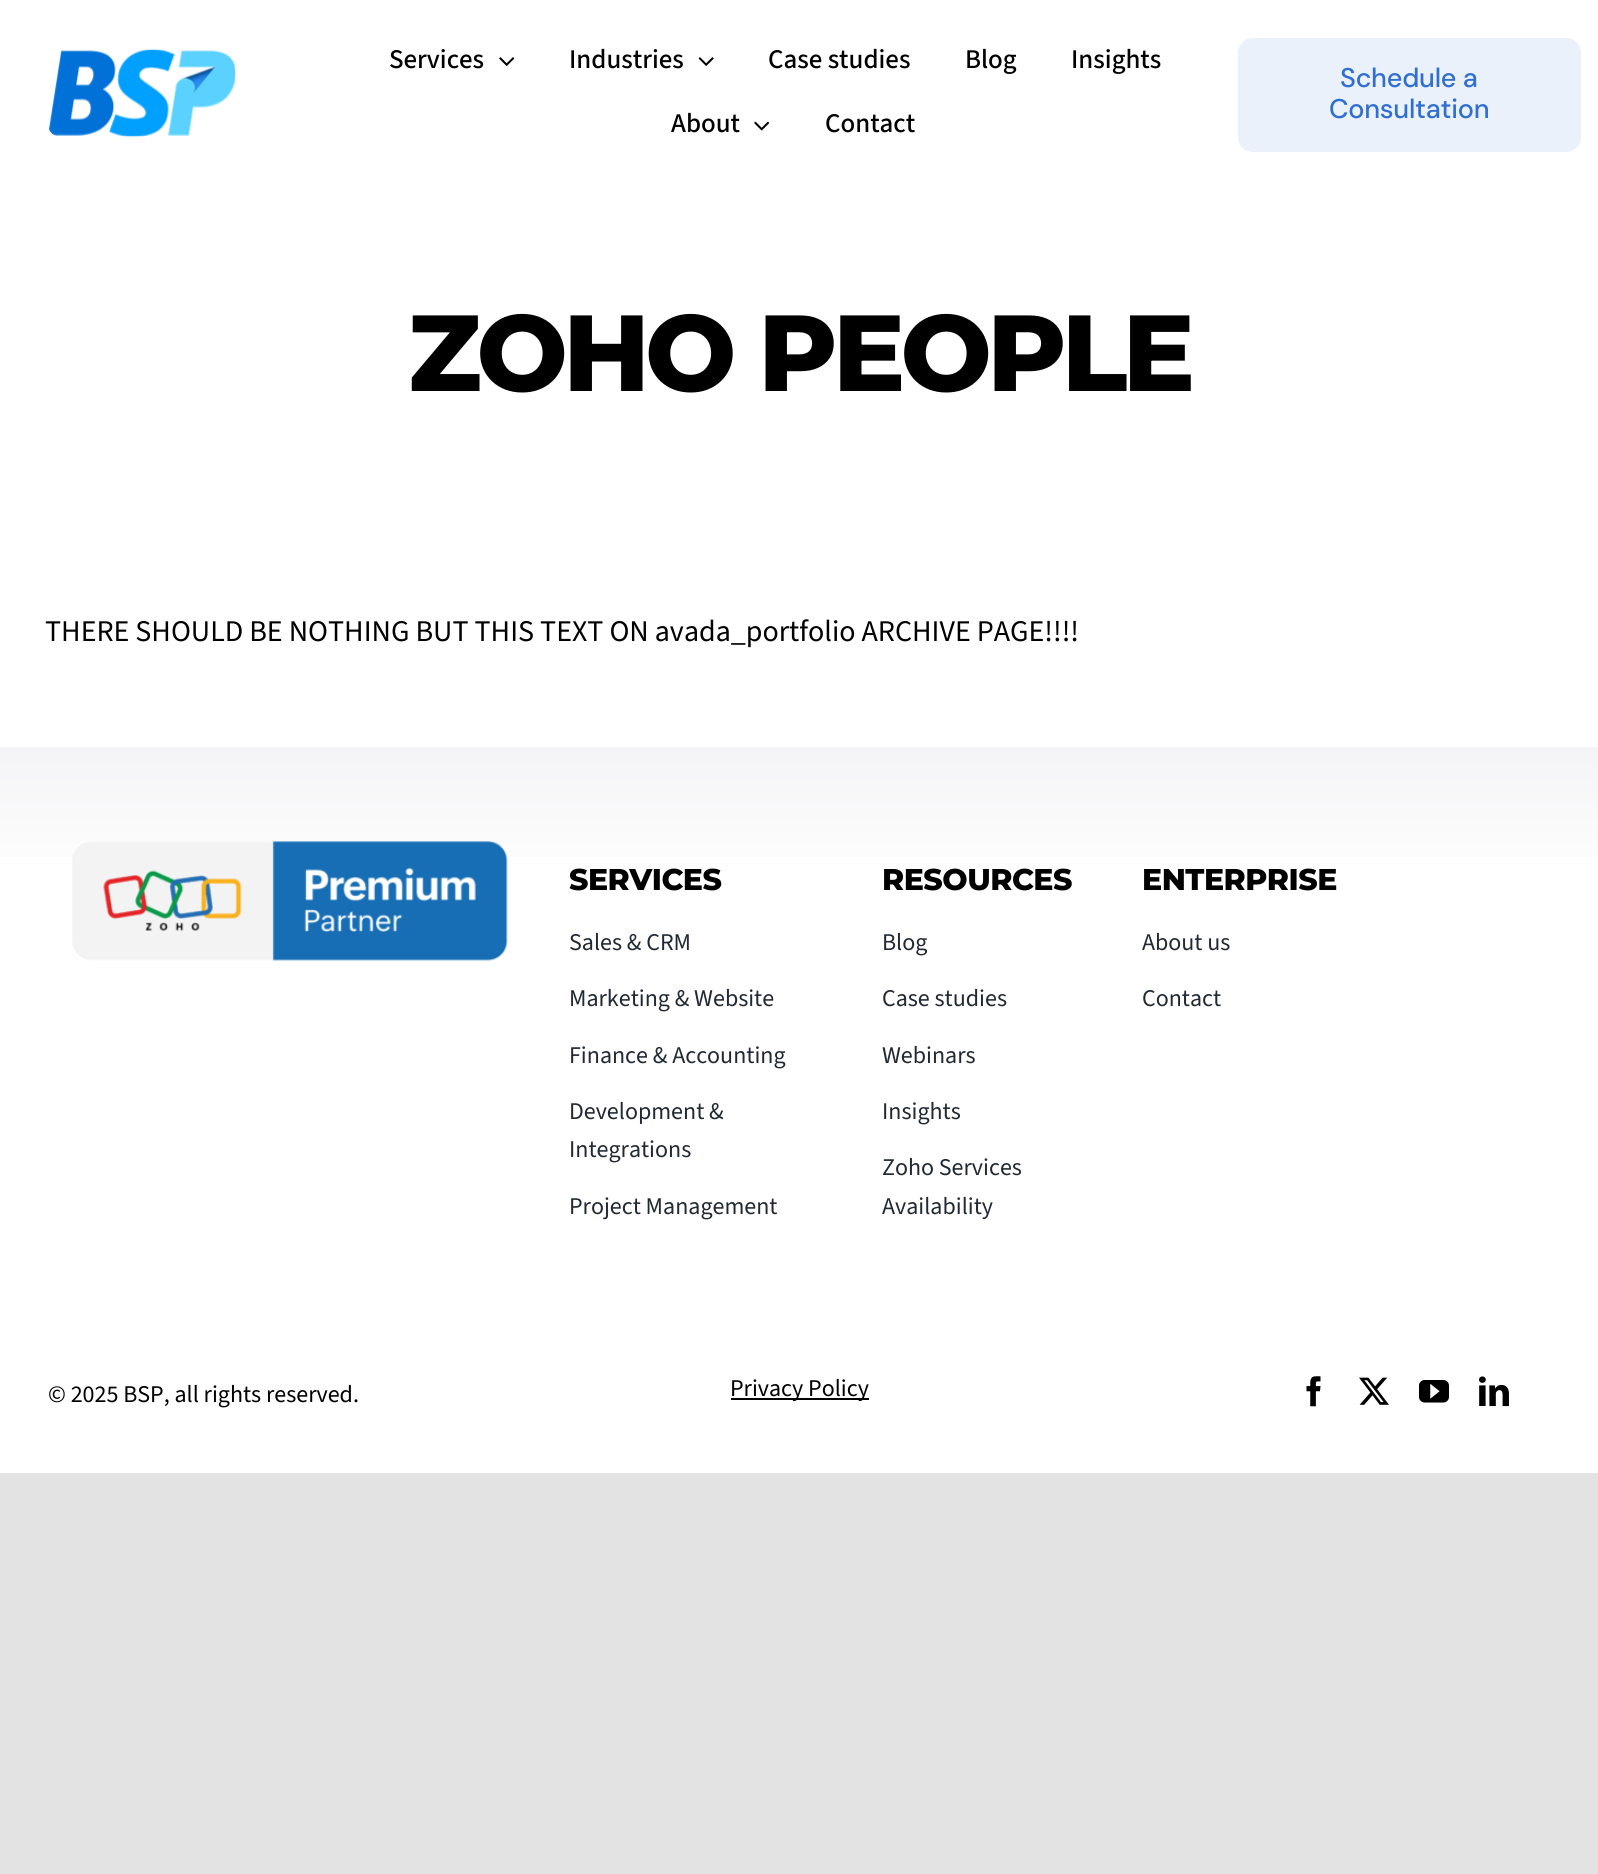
#include <cairo.h>
#include <math.h>
#include <stddef.h>

static cairo_t *ctx;

static void use_color(int r, int g, int b) {
    cairo_set_source_rgb(ctx, r / 255.0, g / 255.0, b / 255.0);
}

static void spaced_text(double x, double y, const char *s, double letter, double word) {
    cairo_move_to(ctx, x, y);
    while (*s) {
        char ch[5] = {0};
        int n = 0;
        do ch[n++] = *s++; while ((*s & 0xC0) == 0x80);
        cairo_show_text(ctx, ch);
        cairo_rel_move_to(ctx, letter + word * (*ch == ' '), 0);
    }
}

static void round_rect(double x, double y, double w, double h, double r) {
    cairo_new_sub_path(ctx);
    cairo_arc(ctx, x + w - r, y + h - r, r, 0, M_PI / 2);
    cairo_arc(ctx, x + r, y + h - r, r, M_PI / 2, M_PI);
    cairo_arc(ctx, x + r, y + r, r, M_PI, 1.5 * M_PI);
    cairo_arc(ctx, x + w - r, y + r, r, 1.5 * M_PI, 2 * M_PI);
    cairo_close_path(ctx);
}

static void picture(const char *path, double x, double y, double w, double h) {
    cairo_surface_t *image = cairo_image_surface_create_from_png(path);
    cairo_save(ctx);
    cairo_set_source_surface(ctx, image, x, y);
    cairo_rectangle(ctx, x, y, w, h);
    cairo_fill(ctx);
    cairo_restore(ctx);
    cairo_surface_destroy(image);
}

int main(void) {
    cairo_surface_t *surface = cairo_image_surface_create(CAIRO_FORMAT_RGB24, 1598, 1874);
    ctx = cairo_create(surface);
    cairo_font_options_t *options = cairo_font_options_create();
    cairo_font_options_set_hint_metrics(options, CAIRO_HINT_METRICS_OFF);
    cairo_font_options_set_hint_style(options, CAIRO_HINT_STYLE_NONE);
    cairo_set_font_options(ctx, options);
    cairo_set_miter_limit(ctx, 4);
    cairo_pattern_t *gradient;
    use_color(227, 227, 227);
    cairo_paint(ctx);
    use_color(255, 255, 255);
    cairo_rectangle(ctx, 0, 0, 1598, 1473);
    cairo_fill(ctx);
    picture("img1.png", 49, 49, 187, 88);
    cairo_select_font_face(ctx, "Source Sans 3 Medium", CAIRO_FONT_SLANT_NORMAL, CAIRO_FONT_WEIGHT_NORMAL);
    cairo_set_font_size(ctx, 27);
    use_color(0, 0, 0);
    cairo_move_to(ctx, 389, 68);
    cairo_show_text(ctx, "Services");
    picture("img2.png", 499, 57, 16, 9);
    cairo_move_to(ctx, 569, 68);
    cairo_show_text(ctx, "Industries");
    picture("img3.png", 698, 57, 16, 9);
    cairo_move_to(ctx, 768, 68);
    cairo_show_text(ctx, "Case studies");
    cairo_move_to(ctx, 965, 68);
    cairo_show_text(ctx, "Blog");
    cairo_move_to(ctx, 1071, 68);
    cairo_show_text(ctx, "Insights");
    cairo_move_to(ctx, 671, 132);
    cairo_show_text(ctx, "About");
    picture("img4.png", 754, 121, 16, 10);
    cairo_move_to(ctx, 825, 132);
    cairo_show_text(ctx, "Contact");
    use_color(234, 241, 250);
    round_rect(1238, 38, 343, 114, 15);
    cairo_fill(ctx);
    cairo_select_font_face(ctx, "DM Sans Medium", CAIRO_FONT_SLANT_NORMAL, CAIRO_FONT_WEIGHT_NORMAL);
    use_color(48, 111, 208);
    spaced_text(1340, 87, "Schedule a", -0.25, 0);
    spaced_text(1329, 118, "Consultation", -0.25, 0);
    cairo_select_font_face(ctx, "Montserrat Thin", CAIRO_FONT_SLANT_NORMAL, CAIRO_FONT_WEIGHT_NORMAL);
    cairo_set_font_size(ctx, 108);
    use_color(0, 0, 0);
    spaced_text(408, 391, "ZOHO PEOPLE", -4.9, 0);
    cairo_select_font_face(ctx, "Source Sans 3", CAIRO_FONT_SLANT_NORMAL, CAIRO_FONT_WEIGHT_NORMAL);
    cairo_set_font_size(ctx, 30);
    cairo_move_to(ctx, 45, 641);
    cairo_show_text(ctx, "THERE SHOULD BE NOTHING BUT THIS TEXT ON avada_portfolio ARCHIVE PAGE!!!!");
    gradient = cairo_pattern_create_linear(800, 747, 800, 1317);
    cairo_pattern_add_color_stop_rgba(gradient, 0, 0.957, 0.957, 0.965, 1);
    cairo_pattern_add_color_stop_rgba(gradient, 0.25, 1, 1, 1, 1);
    cairo_set_source(ctx, gradient);
    cairo_pattern_destroy(gradient);
    cairo_rectangle(ctx, 0, 747, 1598, 110);
    cairo_fill(ctx);
    picture("img5.png", 72, 841, 436, 120);
    cairo_select_font_face(ctx, "Montserrat Thin", CAIRO_FONT_SLANT_NORMAL, CAIRO_FONT_WEIGHT_NORMAL);
    use_color(0, 0, 0);
    spaced_text(569, 890, "SERVICES", -0.5, 0);
    cairo_select_font_face(ctx, "Source Sans 3", CAIRO_FONT_SLANT_NORMAL, CAIRO_FONT_WEIGHT_NORMAL);
    cairo_set_font_size(ctx, 24);
    use_color(33, 41, 52);
    cairo_move_to(ctx, 569, 950);
    cairo_show_text(ctx, "Sales & CRM");
    cairo_move_to(ctx, 569, 1006);
    cairo_show_text(ctx, "Marketing & Website");
    cairo_move_to(ctx, 569, 1063);
    cairo_show_text(ctx, "Finance & Accounting");
    cairo_move_to(ctx, 569, 1119);
    cairo_show_text(ctx, "Development &");
    cairo_move_to(ctx, 569, 1157);
    cairo_show_text(ctx, "Integrations");
    cairo_move_to(ctx, 569, 1214);
    cairo_show_text(ctx, "Project Management");
    cairo_select_font_face(ctx, "Montserrat Thin", CAIRO_FONT_SLANT_NORMAL, CAIRO_FONT_WEIGHT_NORMAL);
    cairo_set_font_size(ctx, 30);
    use_color(0, 0, 0);
    spaced_text(882, 890, "RESOURCES", -0.5, 0);
    cairo_select_font_face(ctx, "Source Sans 3", CAIRO_FONT_SLANT_NORMAL, CAIRO_FONT_WEIGHT_NORMAL);
    cairo_set_font_size(ctx, 24);
    use_color(33, 41, 52);
    cairo_move_to(ctx, 882, 950);
    cairo_show_text(ctx, "Blog");
    cairo_move_to(ctx, 882, 1006);
    cairo_show_text(ctx, "Case studies");
    cairo_move_to(ctx, 882, 1063);
    cairo_show_text(ctx, "Webinars");
    cairo_move_to(ctx, 882, 1119);
    cairo_show_text(ctx, "Insights");
    cairo_move_to(ctx, 882, 1175);
    cairo_show_text(ctx, "Zoho Services");
    cairo_move_to(ctx, 882, 1214);
    cairo_show_text(ctx, "Availability");
    cairo_select_font_face(ctx, "Montserrat Thin", CAIRO_FONT_SLANT_NORMAL, CAIRO_FONT_WEIGHT_NORMAL);
    cairo_set_font_size(ctx, 30);
    use_color(0, 0, 0);
    spaced_text(1142, 890, "ENTERPRISE", -0.5, 0);
    cairo_select_font_face(ctx, "Source Sans 3", CAIRO_FONT_SLANT_NORMAL, CAIRO_FONT_WEIGHT_NORMAL);
    cairo_set_font_size(ctx, 24);
    use_color(33, 41, 52);
    cairo_move_to(ctx, 1142, 950);
    cairo_show_text(ctx, "About us");
    cairo_move_to(ctx, 1142, 1006);
    cairo_show_text(ctx, "Contact");
    use_color(0, 0, 0);
    cairo_move_to(ctx, 48, 1402);
    cairo_show_text(ctx, "© 2025 BSP, all rights reserved.");
    cairo_rectangle(ctx, 731, 1398, 138, 2);
    cairo_fill(ctx);
    cairo_move_to(ctx, 730, 1396);
    cairo_show_text(ctx, "Privacy Policy");
    picture("img6.png", 1306, 1376, 15, 31);
    picture("img7.png", 1359, 1377, 30, 28);
    picture("img8.png", 1419, 1380, 30, 23);
    picture("img9.png", 1479, 1376, 30, 31);
    cairo_surface_write_to_png(surface, "result.png");
    cairo_font_options_destroy(options);
    cairo_destroy(ctx);
    cairo_surface_destroy(surface);
    return 0;
}
